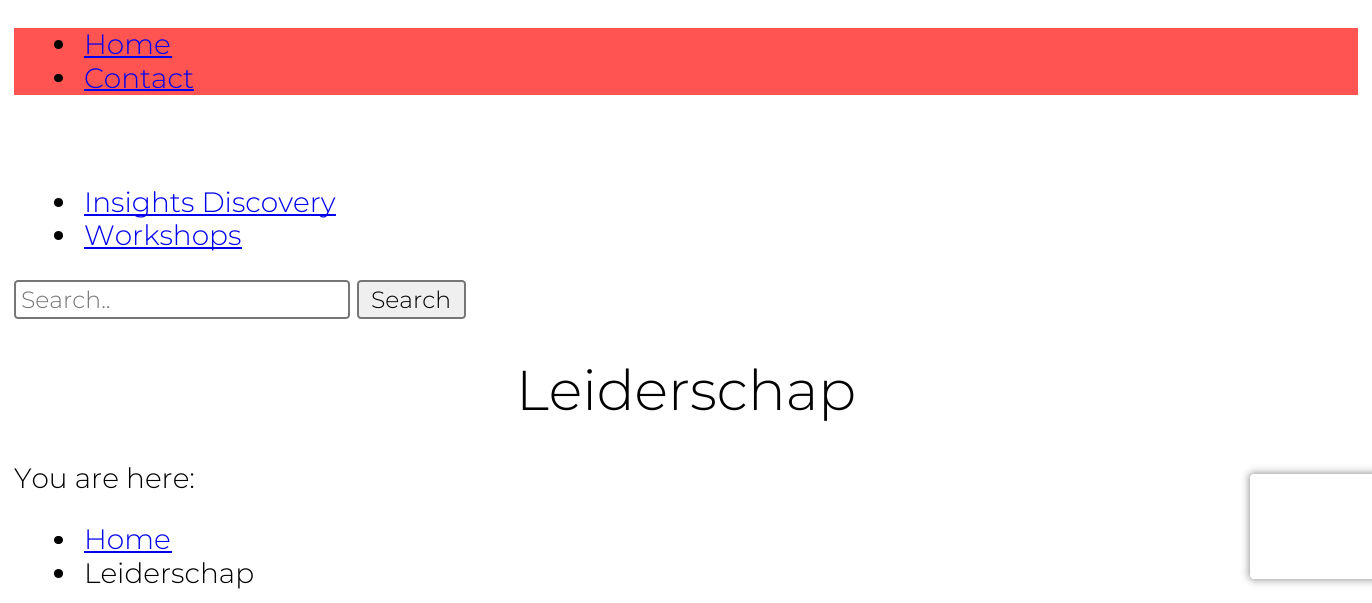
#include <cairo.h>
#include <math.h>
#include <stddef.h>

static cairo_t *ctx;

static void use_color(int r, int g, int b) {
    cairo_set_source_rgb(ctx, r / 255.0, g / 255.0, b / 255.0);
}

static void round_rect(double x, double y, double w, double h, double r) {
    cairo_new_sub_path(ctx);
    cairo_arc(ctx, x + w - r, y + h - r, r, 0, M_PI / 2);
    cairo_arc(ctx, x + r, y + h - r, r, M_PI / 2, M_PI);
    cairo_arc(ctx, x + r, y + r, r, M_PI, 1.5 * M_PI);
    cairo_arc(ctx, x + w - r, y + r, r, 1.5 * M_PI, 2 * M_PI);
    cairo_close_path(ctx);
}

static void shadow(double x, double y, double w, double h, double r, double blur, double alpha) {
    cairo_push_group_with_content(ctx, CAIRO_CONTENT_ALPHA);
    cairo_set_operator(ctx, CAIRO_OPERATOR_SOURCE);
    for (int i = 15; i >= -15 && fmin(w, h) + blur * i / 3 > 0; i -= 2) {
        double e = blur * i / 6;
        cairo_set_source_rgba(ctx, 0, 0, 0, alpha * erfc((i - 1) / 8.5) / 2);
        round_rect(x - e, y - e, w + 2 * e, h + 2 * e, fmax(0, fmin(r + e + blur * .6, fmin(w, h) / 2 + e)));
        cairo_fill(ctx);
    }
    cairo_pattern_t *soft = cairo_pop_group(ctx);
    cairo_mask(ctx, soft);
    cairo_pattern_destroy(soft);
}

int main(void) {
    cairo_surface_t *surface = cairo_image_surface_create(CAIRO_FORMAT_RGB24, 1372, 603);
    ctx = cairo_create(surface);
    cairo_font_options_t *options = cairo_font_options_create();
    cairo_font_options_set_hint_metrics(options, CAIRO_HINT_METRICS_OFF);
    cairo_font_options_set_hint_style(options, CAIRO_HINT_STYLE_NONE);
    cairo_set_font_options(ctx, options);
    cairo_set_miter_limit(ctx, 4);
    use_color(255, 255, 255);
    cairo_paint(ctx);
    use_color(255, 84, 81);
    cairo_rectangle(ctx, 14, 28, 1344, 67);
    cairo_fill(ctx);
    use_color(0, 0, 0);
    cairo_arc(ctx, 58.5, 44.5, 4.5, 0, 2 * M_PI);
    cairo_fill(ctx);
    cairo_select_font_face(ctx, "Montserrat Light", CAIRO_FONT_SLANT_NORMAL, CAIRO_FONT_WEIGHT_NORMAL);
    cairo_set_font_size(ctx, 28);
    use_color(0, 0, 238);
    cairo_move_to(ctx, 84, 54);
    cairo_show_text(ctx, "Home");
    cairo_rectangle(ctx, 84, 56, 88, 2);
    cairo_fill(ctx);
    use_color(0, 0, 0);
    round_rect(54, 74, 9, 8, 4);
    cairo_fill(ctx);
    use_color(0, 0, 238);
    cairo_move_to(ctx, 84, 88);
    cairo_show_text(ctx, "Contact");
    cairo_rectangle(ctx, 84, 89, 110, 2);
    cairo_fill(ctx);
    use_color(0, 0, 0);
    cairo_arc(ctx, 58.5, 202.5, 4.5, 0, 2 * M_PI);
    cairo_fill(ctx);
    use_color(0, 0, 238);
    cairo_rectangle(ctx, 84, 214, 252, 2);
    cairo_fill(ctx);
    cairo_move_to(ctx, 84, 212);
    cairo_show_text(ctx, "Insights Discovery");
    use_color(0, 0, 0);
    cairo_new_path(ctx);
    cairo_arc(ctx, 58.5, 235.5, 4.5, 0, 2 * M_PI);
    cairo_fill(ctx);
    use_color(0, 0, 238);
    cairo_rectangle(ctx, 84, 247, 158, 2);
    cairo_fill(ctx);
    cairo_move_to(ctx, 84, 245);
    cairo_show_text(ctx, "Workshops");
    round_rect(15, 281, 334, 37, 3);
    use_color(118, 118, 118);
    cairo_stroke(ctx);
    cairo_set_font_size(ctx, 23.5);
    use_color(117, 117, 117);
    cairo_move_to(ctx, 21, 308);
    cairo_show_text(ctx, "Search..");
    use_color(239, 239, 239);
    round_rect(358, 281, 107, 37, 3);
    cairo_fill_preserve(ctx);
    use_color(118, 118, 118);
    cairo_stroke(ctx);
    use_color(0, 0, 0);
    cairo_move_to(ctx, 371, 308);
    cairo_show_text(ctx, "Search");
    cairo_set_font_size(ctx, 56);
    cairo_move_to(ctx, 516, 410);
    cairo_show_text(ctx, "Leiderschap");
    cairo_set_font_size(ctx, 28);
    cairo_move_to(ctx, 14, 488);
    cairo_show_text(ctx, "You are here:");
    round_rect(54, 536, 9, 8, 4);
    cairo_fill(ctx);
    use_color(0, 0, 238);
    cairo_move_to(ctx, 84, 549);
    cairo_show_text(ctx, "Home");
    cairo_rectangle(ctx, 84, 551, 88, 2);
    cairo_fill(ctx);
    use_color(0, 0, 0);
    cairo_arc(ctx, 58.5, 573.5, 4.5, 0, 2 * M_PI);
    cairo_fill(ctx);
    cairo_move_to(ctx, 84, 583);
    cairo_show_text(ctx, "Leiderschap");
    cairo_save(ctx);
    cairo_set_fill_rule(ctx, CAIRO_FILL_RULE_EVEN_ODD);
    cairo_new_path(ctx);
    cairo_move_to(ctx, 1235, 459);
    cairo_line_to(ctx, 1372, 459);
    cairo_line_to(ctx, 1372, 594);
    cairo_line_to(ctx, 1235, 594);
    cairo_close_path(ctx);
    cairo_move_to(ctx, 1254, 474);
    cairo_line_to(ctx, 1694, 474);
    cairo_curve_to(ctx, 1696, 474, 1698, 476, 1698, 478);
    cairo_line_to(ctx, 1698, 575);
    cairo_curve_to(ctx, 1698, 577, 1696, 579, 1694, 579);
    cairo_line_to(ctx, 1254, 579);
    cairo_curve_to(ctx, 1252, 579, 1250, 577, 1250, 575);
    cairo_line_to(ctx, 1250, 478);
    cairo_curve_to(ctx, 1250, 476, 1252, 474, 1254, 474);
    cairo_close_path(ctx);
    cairo_clip(ctx);
    use_color(128, 128, 128);
    shadow(1250, 474, 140, 105, 4, 4.5, 1);
    cairo_restore(ctx);
    cairo_surface_write_to_png(surface, "result.png");
    cairo_font_options_destroy(options);
    cairo_destroy(ctx);
    cairo_surface_destroy(surface);
    return 0;
}
